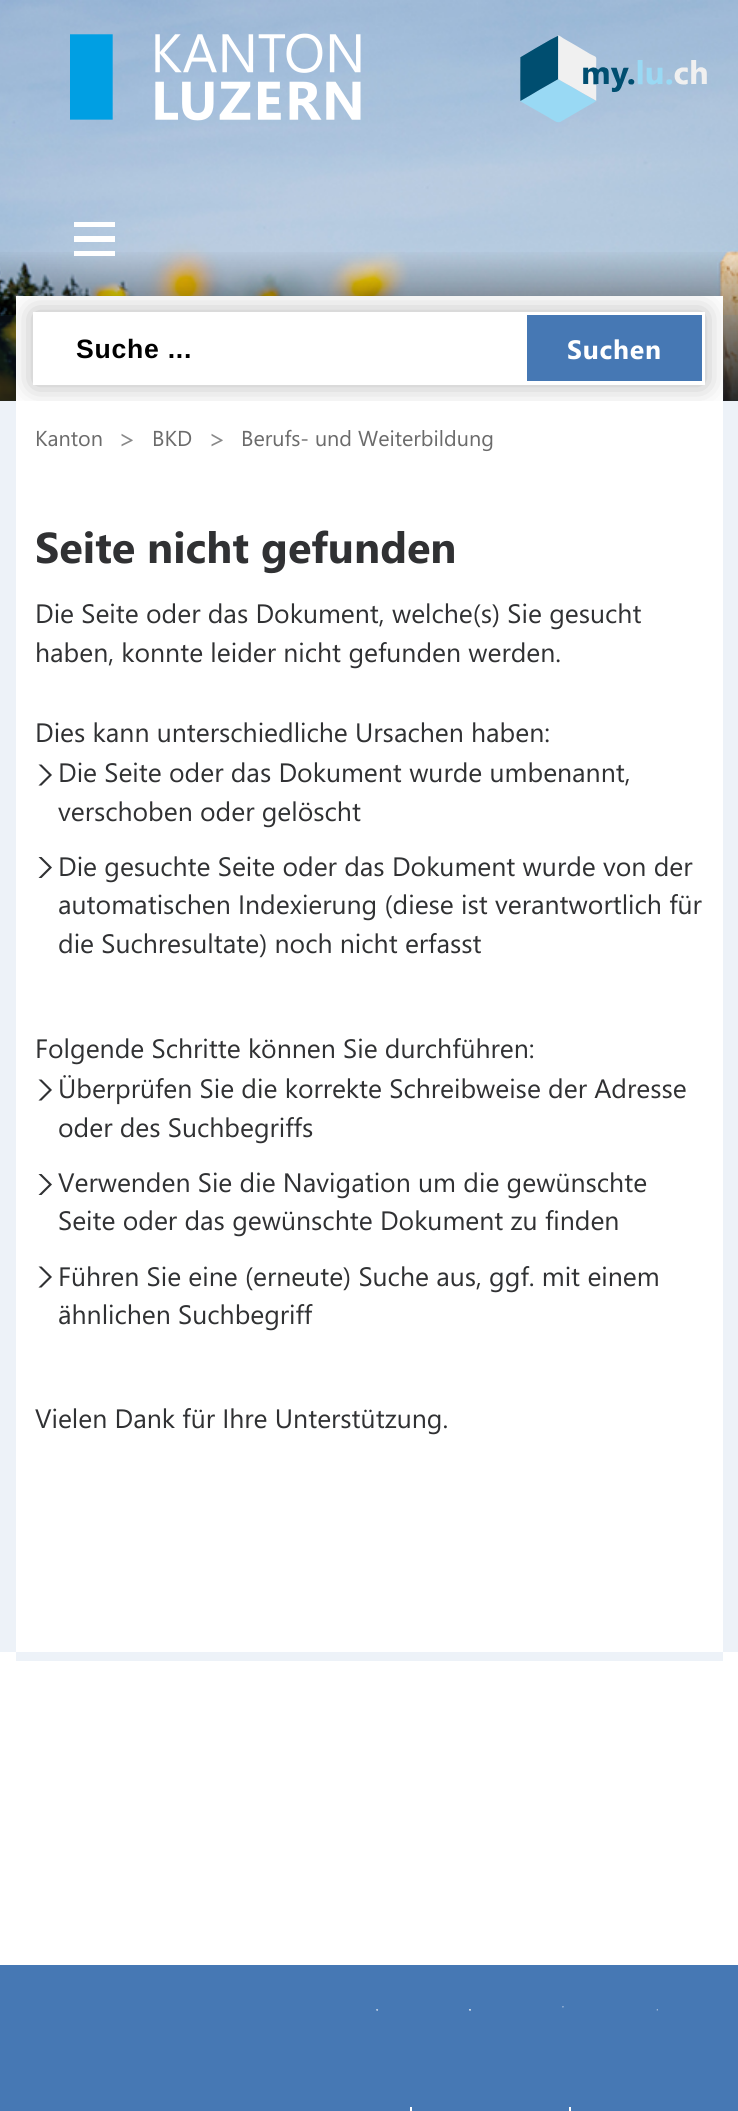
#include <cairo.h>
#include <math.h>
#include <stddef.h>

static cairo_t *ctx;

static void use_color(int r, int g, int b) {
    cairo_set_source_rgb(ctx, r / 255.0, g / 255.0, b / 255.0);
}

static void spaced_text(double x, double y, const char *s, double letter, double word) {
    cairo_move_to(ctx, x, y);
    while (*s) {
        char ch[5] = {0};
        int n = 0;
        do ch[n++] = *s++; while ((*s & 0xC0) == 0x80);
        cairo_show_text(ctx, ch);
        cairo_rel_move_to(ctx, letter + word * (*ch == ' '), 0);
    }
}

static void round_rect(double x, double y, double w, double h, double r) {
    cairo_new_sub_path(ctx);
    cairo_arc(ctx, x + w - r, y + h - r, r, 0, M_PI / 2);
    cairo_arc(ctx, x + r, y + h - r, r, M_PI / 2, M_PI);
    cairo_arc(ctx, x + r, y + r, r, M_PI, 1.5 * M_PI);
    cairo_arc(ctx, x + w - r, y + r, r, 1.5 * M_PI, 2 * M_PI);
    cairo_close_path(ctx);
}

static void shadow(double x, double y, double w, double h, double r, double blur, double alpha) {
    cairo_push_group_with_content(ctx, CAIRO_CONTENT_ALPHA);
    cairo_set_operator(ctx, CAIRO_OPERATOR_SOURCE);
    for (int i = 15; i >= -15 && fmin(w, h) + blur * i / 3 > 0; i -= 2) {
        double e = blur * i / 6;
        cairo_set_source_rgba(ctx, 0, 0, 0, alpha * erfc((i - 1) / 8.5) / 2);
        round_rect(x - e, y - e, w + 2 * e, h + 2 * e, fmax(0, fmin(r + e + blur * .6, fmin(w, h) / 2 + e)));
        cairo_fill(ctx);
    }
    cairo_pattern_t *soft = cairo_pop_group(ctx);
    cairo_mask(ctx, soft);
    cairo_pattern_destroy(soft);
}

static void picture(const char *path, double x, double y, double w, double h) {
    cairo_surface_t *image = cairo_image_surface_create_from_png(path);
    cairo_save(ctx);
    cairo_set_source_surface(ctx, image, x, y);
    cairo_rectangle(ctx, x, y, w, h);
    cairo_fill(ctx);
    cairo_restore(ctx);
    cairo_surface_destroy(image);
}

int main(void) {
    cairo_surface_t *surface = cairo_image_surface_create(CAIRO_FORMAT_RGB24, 738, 2111);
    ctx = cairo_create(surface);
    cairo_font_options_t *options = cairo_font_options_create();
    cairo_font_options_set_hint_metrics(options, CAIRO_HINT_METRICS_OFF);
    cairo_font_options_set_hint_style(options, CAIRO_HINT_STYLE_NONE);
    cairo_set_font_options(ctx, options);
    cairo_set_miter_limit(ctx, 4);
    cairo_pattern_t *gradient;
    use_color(255, 255, 255);
    cairo_paint(ctx);
    picture("img1.png", 0, 0, 738, 401);
    picture("img2.png", 70, 33, 291, 88);
    picture("img3.png", 520, 35, 187, 88);
    gradient = cairo_pattern_create_linear(369, 401, 369, 0);
    cairo_pattern_add_color_stop_rgba(gradient, 0, 0, 0, 0, 0.85);
    cairo_pattern_add_color_stop_rgba(gradient, 0.38, 0, 0, 0, 0);
    cairo_set_source(ctx, gradient);
    cairo_pattern_destroy(gradient);
    cairo_rectangle(ctx, 0, 252, 738, 149);
    cairo_fill(ctx);
    use_color(255, 255, 255);
    cairo_new_path(ctx);
    cairo_move_to(ctx, 74, 222);
    cairo_line_to(ctx, 74, 227);
    cairo_line_to(ctx, 115, 227);
    cairo_line_to(ctx, 115, 222);
    cairo_close_path(ctx);
    cairo_move_to(ctx, 74, 236);
    cairo_line_to(ctx, 74, 242);
    cairo_line_to(ctx, 115, 242);
    cairo_line_to(ctx, 115, 236);
    cairo_close_path(ctx);
    cairo_move_to(ctx, 74, 251);
    cairo_line_to(ctx, 74, 256);
    cairo_line_to(ctx, 115, 256);
    cairo_line_to(ctx, 115, 251);
    cairo_close_path(ctx);
    cairo_fill(ctx);
    cairo_rectangle(ctx, 16, 296, 707, 105);
    cairo_fill(ctx);
    cairo_save(ctx);
    cairo_rectangle(ctx, 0, 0, 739, 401);
    cairo_clip(ctx);
    use_color(0, 0, 0);
    shadow(33, 312, 672, 73, 0, 14, 0.29);
    cairo_restore(ctx);
    cairo_rectangle(ctx, 33, 312, 672, 73);
    cairo_fill(ctx);
    cairo_select_font_face(ctx, "Liberation Sans", CAIRO_FONT_SLANT_NORMAL, CAIRO_FONT_WEIGHT_BOLD);
    cairo_set_font_size(ctx, 26.6);
    use_color(0, 0, 0);
    spaced_text(76, 358, "Suche ...", 0.75, 0);
    use_color(70, 120, 180);
    cairo_rectangle(ctx, 527, 315, 175, 66);
    cairo_fill(ctx);
    cairo_select_font_face(ctx, "Segoe UI", CAIRO_FONT_SLANT_NORMAL, CAIRO_FONT_WEIGHT_BOLD);
    use_color(255, 255, 255);
    spaced_text(567, 359, "Suchen", 0.75, 0);
    use_color(237, 242, 248);
    cairo_rectangle(ctx, 16, 1652, 707, 9);
    cairo_fill(ctx);
    cairo_set_source_rgba(ctx, 0.275, 0.471, 0.706, 0.1);
    cairo_rectangle(ctx, 0, 315, 16, 1337);
    cairo_fill(ctx);
    cairo_select_font_face(ctx, "Segoe UI", CAIRO_FONT_SLANT_NORMAL, CAIRO_FONT_WEIGHT_NORMAL);
    cairo_set_font_size(ctx, 21.6);
    use_color(107, 107, 107);
    cairo_move_to(ctx, 35, 446);
    cairo_show_text(ctx, "Kanton");
    cairo_set_font_size(ctx, 26.6);
    use_color(137, 137, 137);
    cairo_move_to(ctx, 118, 448);
    cairo_show_text(ctx, ">");
    cairo_set_font_size(ctx, 21.6);
    use_color(107, 107, 107);
    cairo_move_to(ctx, 152, 446);
    cairo_show_text(ctx, "BKD");
    cairo_set_font_size(ctx, 26.6);
    use_color(137, 137, 137);
    cairo_move_to(ctx, 208, 448);
    cairo_show_text(ctx, ">");
    cairo_set_font_size(ctx, 21.6);
    use_color(107, 107, 107);
    cairo_move_to(ctx, 241, 446);
    cairo_show_text(ctx, "Berufs- und Weiterbildung");
    cairo_set_source_rgba(ctx, 0.275, 0.471, 0.706, 0.1);
    cairo_rectangle(ctx, 723, 315, 15, 1337);
    cairo_fill(ctx);
    cairo_select_font_face(ctx, "Segoe UI", CAIRO_FONT_SLANT_NORMAL, CAIRO_FONT_WEIGHT_BOLD);
    cairo_set_font_size(ctx, 43.25);
    use_color(48, 49, 51);
    cairo_move_to(ctx, 35, 563);
    cairo_show_text(ctx, "Seite nicht gefunden");
    cairo_select_font_face(ctx, "Segoe UI", CAIRO_FONT_SLANT_NORMAL, CAIRO_FONT_WEIGHT_NORMAL);
    cairo_set_font_size(ctx, 26.6);
    cairo_move_to(ctx, 35, 623);
    cairo_show_text(ctx, "Die Seite oder das Dokument, welche(s) Sie gesucht");
    cairo_move_to(ctx, 35, 662);
    cairo_show_text(ctx, "haben, konnte leider nicht gefunden werden.");
    cairo_move_to(ctx, 35, 742);
    cairo_show_text(ctx, "Dies kann unterschiedliche Ursachen haben:");
    cairo_new_path(ctx);
    cairo_move_to(ctx, 49, 775);
    cairo_line_to(ctx, 38.5, 785.5);
    cairo_line_to(ctx, 41.5, 785.5);
    cairo_line_to(ctx, 52, 775);
    cairo_line_to(ctx, 41.5, 764.5);
    cairo_line_to(ctx, 38.5, 764.5);
    cairo_close_path(ctx);
    cairo_fill(ctx);
    cairo_move_to(ctx, 58, 782);
    cairo_show_text(ctx, "Die Seite oder das Dokument wurde umbenannt,");
    cairo_move_to(ctx, 58, 821);
    cairo_show_text(ctx, "verschoben oder gelöscht");
    cairo_new_path(ctx);
    cairo_move_to(ctx, 49, 867.5);
    cairo_line_to(ctx, 38.5, 878);
    cairo_line_to(ctx, 41.5, 878);
    cairo_line_to(ctx, 52, 867.5);
    cairo_line_to(ctx, 41.5, 857);
    cairo_line_to(ctx, 38.5, 857);
    cairo_close_path(ctx);
    cairo_fill(ctx);
    cairo_move_to(ctx, 58, 876);
    cairo_show_text(ctx, "Die gesuchte Seite oder das Dokument wurde von der");
    cairo_move_to(ctx, 58, 914);
    cairo_show_text(ctx, "automatischen Indexierung (diese ist verantwortlich für");
    cairo_move_to(ctx, 58, 953);
    cairo_show_text(ctx, "die Suchresultate) noch nicht erfasst");
    cairo_move_to(ctx, 35, 1058);
    cairo_show_text(ctx, "Folgende Schritte können Sie durchführen:");
    cairo_new_path(ctx);
    cairo_move_to(ctx, 49, 1090);
    cairo_line_to(ctx, 38.5, 1100.5);
    cairo_line_to(ctx, 41.5, 1100.5);
    cairo_line_to(ctx, 52, 1090);
    cairo_line_to(ctx, 41.5, 1079.5);
    cairo_line_to(ctx, 38.5, 1079.5);
    cairo_close_path(ctx);
    cairo_fill(ctx);
    cairo_move_to(ctx, 58, 1098);
    cairo_show_text(ctx, "Überprüfen Sie die korrekte Schreibweise der Adresse");
    cairo_move_to(ctx, 58, 1137);
    cairo_show_text(ctx, "oder des Suchbegriffs");
    cairo_new_path(ctx);
    cairo_move_to(ctx, 49, 1184.5);
    cairo_line_to(ctx, 38.5, 1195);
    cairo_line_to(ctx, 41.5, 1195);
    cairo_line_to(ctx, 52, 1184.5);
    cairo_line_to(ctx, 41.5, 1174);
    cairo_line_to(ctx, 38.5, 1174);
    cairo_close_path(ctx);
    cairo_fill(ctx);
    cairo_move_to(ctx, 58, 1192);
    cairo_show_text(ctx, "Verwenden Sie die Navigation um die gewünschte");
    cairo_move_to(ctx, 58, 1230);
    cairo_show_text(ctx, "Seite oder das gewünschte Dokument zu finden");
    cairo_new_path(ctx);
    cairo_move_to(ctx, 49, 1277);
    cairo_line_to(ctx, 38.5, 1287.5);
    cairo_line_to(ctx, 41.5, 1287.5);
    cairo_line_to(ctx, 52, 1277);
    cairo_line_to(ctx, 41.5, 1266.5);
    cairo_line_to(ctx, 38.5, 1266.5);
    cairo_close_path(ctx);
    cairo_fill(ctx);
    cairo_move_to(ctx, 58, 1286);
    cairo_show_text(ctx, "Führen Sie eine (erneute) Suche aus, ggf. mit einem");
    cairo_move_to(ctx, 58, 1324);
    cairo_show_text(ctx, "ähnlichen Suchbegriff");
    cairo_move_to(ctx, 35, 1428);
    cairo_show_text(ctx, "Vielen Dank für Ihre Unterstützung.");
    use_color(70, 120, 180);
    cairo_rectangle(ctx, 0, 1965, 738, 146);
    cairo_fill(ctx);
    picture("img4.png", 562, 2006, 2, 2);
    picture("img5.png", 376, 2009, 3, 2);
    picture("img6.png", 469, 2009, 2, 2);
    picture("img7.png", 656, 2009, 2, 2);
    use_color(255, 255, 255);
    cairo_rectangle(ctx, 410, 2107, 2, 4);
    cairo_fill(ctx);
    cairo_rectangle(ctx, 569, 2107, 2, 4);
    cairo_fill(ctx);
    cairo_surface_write_to_png(surface, "result.png");
    cairo_font_options_destroy(options);
    cairo_destroy(ctx);
    cairo_surface_destroy(surface);
    return 0;
}
